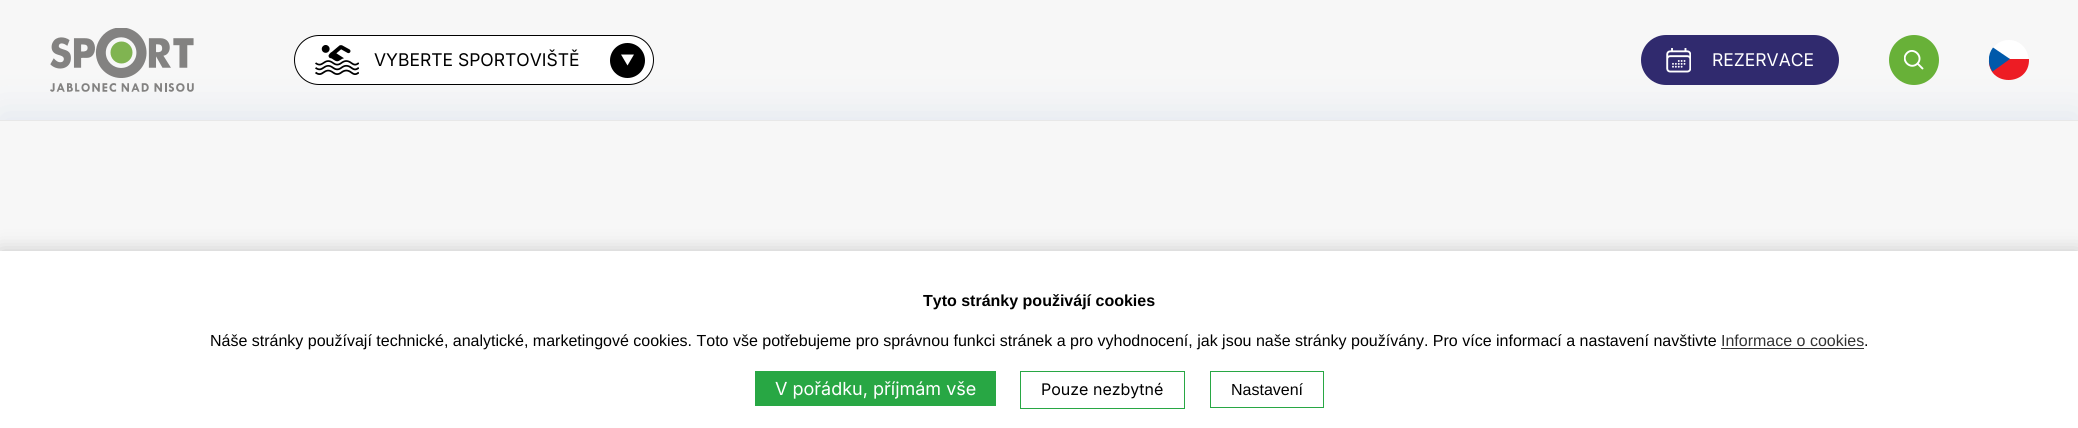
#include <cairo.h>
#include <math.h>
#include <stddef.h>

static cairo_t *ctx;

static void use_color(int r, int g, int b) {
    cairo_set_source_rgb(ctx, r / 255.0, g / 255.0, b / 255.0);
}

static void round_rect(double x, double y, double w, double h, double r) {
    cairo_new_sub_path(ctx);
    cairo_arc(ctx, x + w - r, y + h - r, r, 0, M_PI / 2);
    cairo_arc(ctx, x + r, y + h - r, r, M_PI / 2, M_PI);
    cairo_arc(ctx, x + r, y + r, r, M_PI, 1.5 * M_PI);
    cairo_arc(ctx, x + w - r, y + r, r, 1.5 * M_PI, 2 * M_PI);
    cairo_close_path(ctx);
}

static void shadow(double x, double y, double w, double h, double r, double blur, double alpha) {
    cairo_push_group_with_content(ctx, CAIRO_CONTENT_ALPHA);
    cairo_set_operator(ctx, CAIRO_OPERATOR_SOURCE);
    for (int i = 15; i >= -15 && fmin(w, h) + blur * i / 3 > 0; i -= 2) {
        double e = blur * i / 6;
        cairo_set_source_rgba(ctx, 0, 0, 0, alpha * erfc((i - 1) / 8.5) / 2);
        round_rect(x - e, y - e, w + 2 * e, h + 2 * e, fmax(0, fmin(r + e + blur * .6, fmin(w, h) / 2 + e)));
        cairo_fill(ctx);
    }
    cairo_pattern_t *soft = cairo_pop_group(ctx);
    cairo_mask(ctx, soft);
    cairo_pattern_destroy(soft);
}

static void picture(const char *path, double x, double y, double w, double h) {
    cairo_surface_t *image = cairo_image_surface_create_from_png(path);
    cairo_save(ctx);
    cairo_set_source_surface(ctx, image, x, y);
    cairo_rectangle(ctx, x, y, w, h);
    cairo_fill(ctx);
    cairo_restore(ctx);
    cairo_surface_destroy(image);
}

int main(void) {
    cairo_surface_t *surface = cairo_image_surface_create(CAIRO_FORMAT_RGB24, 2078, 428);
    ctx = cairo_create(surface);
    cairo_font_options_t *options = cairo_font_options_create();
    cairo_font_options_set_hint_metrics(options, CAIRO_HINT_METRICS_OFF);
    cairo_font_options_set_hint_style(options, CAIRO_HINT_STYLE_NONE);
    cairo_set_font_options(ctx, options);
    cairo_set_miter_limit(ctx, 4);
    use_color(247, 247, 247);
    cairo_paint(ctx);
    cairo_save(ctx);
    cairo_rectangle(ctx, 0, 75, 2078, 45);
    cairo_clip(ctx);
    use_color(226, 232, 240);
    shadow(0, 114, 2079, 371, 0, 19, 1);
    cairo_restore(ctx);
    picture("img1.png", 50, 28, 144, 64);
    use_color(255, 255, 255);
    round_rect(294.5, 35.5, 359, 49, 24.5);
    cairo_fill_preserve(ctx);
    use_color(0, 0, 0);
    cairo_set_line_width(ctx, 1);
    cairo_stroke(ctx);
    picture("img2.png", 315, 45, 44, 30);
    cairo_select_font_face(ctx, "Inter", CAIRO_FONT_SLANT_NORMAL, CAIRO_FONT_WEIGHT_NORMAL);
    cairo_set_font_size(ctx, 17.5);
    cairo_move_to(ctx, 374, 66);
    cairo_show_text(ctx, "VYBERTE SPORTOVIŠTĚ");
    cairo_new_path(ctx);
    cairo_arc(ctx, 627.5, 60.5, 17.5, 0, 2 * M_PI);
    cairo_fill(ctx);
    use_color(255, 255, 255);
    cairo_new_path(ctx);
    cairo_move_to(ctx, 627.5, 65.5);
    cairo_line_to(ctx, 634, 54.5);
    cairo_line_to(ctx, 621, 54.5);
    cairo_close_path(ctx);
    cairo_fill(ctx);
    use_color(48, 42, 110);
    round_rect(1641, 35, 198, 50, 25);
    cairo_fill(ctx);
    picture("img3.png", 1666, 48, 25, 25);
    use_color(255, 255, 255);
    cairo_move_to(ctx, 1712, 66);
    cairo_show_text(ctx, "REZERVACE");
    use_color(104, 177, 56);
    cairo_new_path(ctx);
    cairo_arc(ctx, 1914, 60, 25, 0, 2 * M_PI);
    cairo_fill(ctx);
    cairo_save(ctx);
    cairo_rectangle(ctx, 1904, 50, 20, 20);
    cairo_clip(ctx);
    cairo_new_path(ctx);
    cairo_move_to(ctx, 1922.5, 68.5);
    cairo_line_to(ctx, 1917.5, 63.5);
    cairo_move_to(ctx, 1917.5, 63.5);
    cairo_curve_to(ctx, 1924, 56.5, 1913.5, 46.5, 1907, 53);
    cairo_curve_to(ctx, 1900, 60, 1910.5, 70.5, 1917.5, 63.5);
    cairo_close_path(ctx);
    use_color(255, 255, 255);
    cairo_set_line_width(ctx, 1.9);
    cairo_set_line_cap(ctx, CAIRO_LINE_CAP_ROUND);
    cairo_set_line_join(ctx, CAIRO_LINE_JOIN_ROUND);
    cairo_stroke(ctx);
    cairo_restore(ctx);
    use_color(255, 255, 255);
    cairo_new_path(ctx);
    cairo_move_to(ctx, 2009, 40);
    cairo_curve_to(ctx, 2019.5, 40, 2028, 48.5, 2028.5, 59);
    cairo_line_to(ctx, 1989, 59);
    cairo_curve_to(ctx, 1989.5, 48.5, 1998, 40, 2009, 40);
    cairo_close_path(ctx);
    cairo_fill(ctx);
    use_color(237, 28, 36);
    cairo_new_path(ctx);
    cairo_move_to(ctx, 2029, 59);
    cairo_curve_to(ctx, 2030, 87, 1987, 87, 1989, 59);
    cairo_close_path(ctx);
    cairo_fill(ctx);
    cairo_save(ctx);
    cairo_rectangle(ctx, 1989, 40, 40, 40);
    cairo_clip(ctx);
    use_color(0, 89, 170);
    cairo_new_path(ctx);
    cairo_move_to(ctx, 1993, 47.5);
    cairo_curve_to(ctx, 1987.5, 54.5, 1987.5, 64.5, 1992.5, 71.5);
    cairo_line_to(ctx, 2010, 59);
    cairo_close_path(ctx);
    cairo_fill(ctx);
    cairo_restore(ctx);
    use_color(232, 232, 232);
    cairo_rectangle(ctx, 0, 120, 2078, 1);
    cairo_fill(ctx);
    use_color(0, 0, 0);
    shadow(0, 251, 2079, 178, 0, 10, 0.2);
    use_color(255, 255, 255);
    cairo_rectangle(ctx, 0, 251, 2078, 177);
    cairo_fill(ctx);
    cairo_select_font_face(ctx, "Liberation Sans", CAIRO_FONT_SLANT_NORMAL, CAIRO_FONT_WEIGHT_BOLD);
    cairo_set_font_size(ctx, 16);
    use_color(0, 0, 0);
    cairo_move_to(ctx, 923, 306);
    cairo_show_text(ctx, "Tyto stránky použivájí cookies");
    cairo_select_font_face(ctx, "Liberation Sans", CAIRO_FONT_SLANT_NORMAL, CAIRO_FONT_WEIGHT_NORMAL);
    cairo_move_to(ctx, 210, 346);
    cairo_show_text(ctx, "Náše stránky používají technické, analytické, marketingové cookies. Toto vše potřebujeme pro správnou funkci stránek a pro vyhodnocení, jak jsou naše stránky používány. Pro více informací a nastavení navštivte");
    use_color(51, 51, 51);
    cairo_move_to(ctx, 1721, 346);
    cairo_show_text(ctx, "Informace o cookies");
    cairo_rectangle(ctx, 1721, 348, 143, 1);
    cairo_fill(ctx);
    use_color(0, 0, 0);
    cairo_move_to(ctx, 1864, 346);
    cairo_show_text(ctx, ".");
    use_color(40, 167, 68);
    cairo_rectangle(ctx, 755, 371, 241, 35);
    cairo_fill(ctx);
    cairo_select_font_face(ctx, "Inter", CAIRO_FONT_SLANT_NORMAL, CAIRO_FONT_WEIGHT_NORMAL);
    cairo_set_font_size(ctx, 18);
    use_color(255, 255, 255);
    cairo_move_to(ctx, 775, 395);
    cairo_show_text(ctx, "V pořádku, příjmám vše");
    cairo_rectangle(ctx, 1020.5, 371.5, 164, 37);
    use_color(40, 167, 68);
    cairo_stroke(ctx);
    cairo_set_font_size(ctx, 16);
    use_color(0, 0, 0);
    cairo_move_to(ctx, 1041, 395);
    cairo_show_text(ctx, "Pouze nezbytné");
    cairo_rectangle(ctx, 1210.5, 371.5, 113, 36);
    use_color(40, 167, 68);
    cairo_stroke(ctx);
    cairo_select_font_face(ctx, "Liberation Sans", CAIRO_FONT_SLANT_NORMAL, CAIRO_FONT_WEIGHT_NORMAL);
    use_color(0, 0, 0);
    cairo_move_to(ctx, 1231, 395);
    cairo_show_text(ctx, "Nastavení");
    cairo_surface_write_to_png(surface, "result.png");
    cairo_font_options_destroy(options);
    cairo_destroy(ctx);
    cairo_surface_destroy(surface);
    return 0;
}
